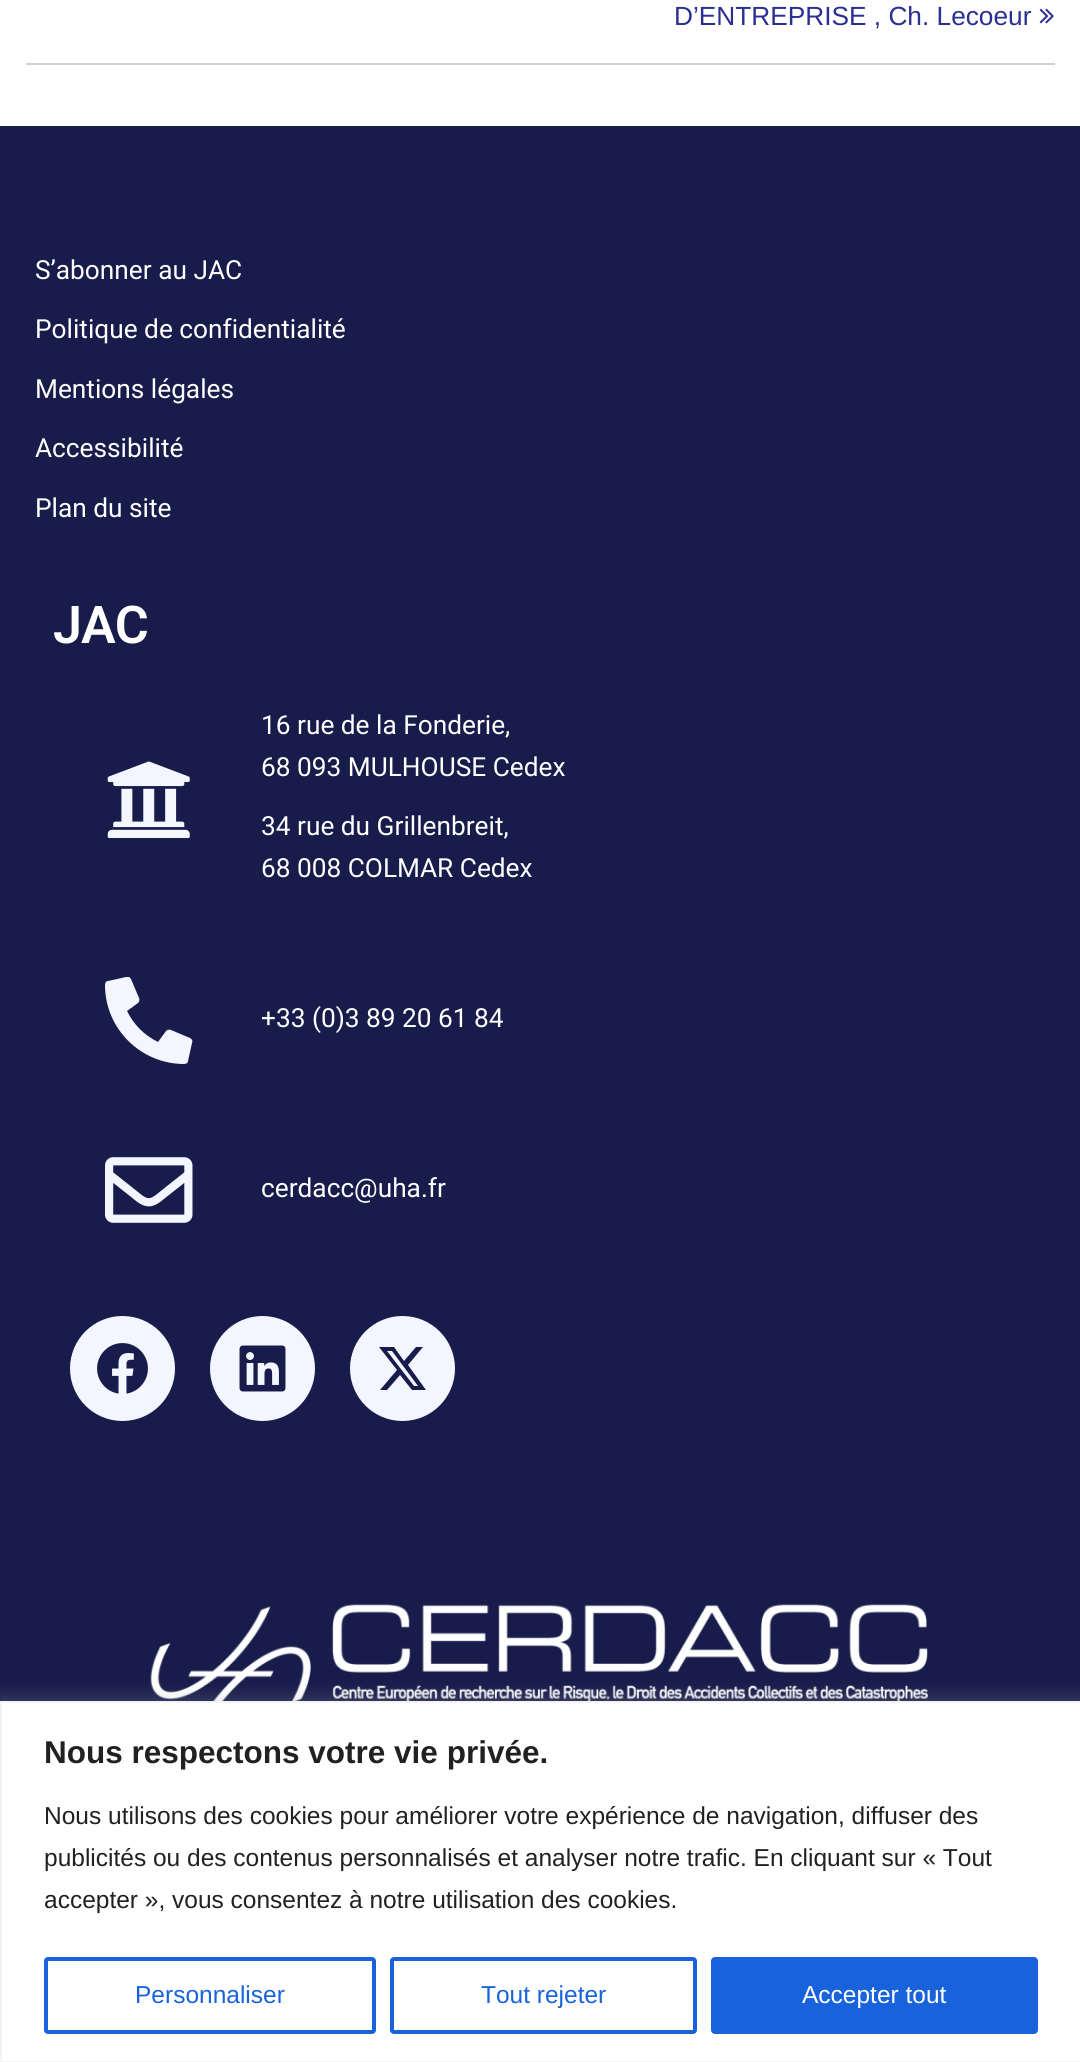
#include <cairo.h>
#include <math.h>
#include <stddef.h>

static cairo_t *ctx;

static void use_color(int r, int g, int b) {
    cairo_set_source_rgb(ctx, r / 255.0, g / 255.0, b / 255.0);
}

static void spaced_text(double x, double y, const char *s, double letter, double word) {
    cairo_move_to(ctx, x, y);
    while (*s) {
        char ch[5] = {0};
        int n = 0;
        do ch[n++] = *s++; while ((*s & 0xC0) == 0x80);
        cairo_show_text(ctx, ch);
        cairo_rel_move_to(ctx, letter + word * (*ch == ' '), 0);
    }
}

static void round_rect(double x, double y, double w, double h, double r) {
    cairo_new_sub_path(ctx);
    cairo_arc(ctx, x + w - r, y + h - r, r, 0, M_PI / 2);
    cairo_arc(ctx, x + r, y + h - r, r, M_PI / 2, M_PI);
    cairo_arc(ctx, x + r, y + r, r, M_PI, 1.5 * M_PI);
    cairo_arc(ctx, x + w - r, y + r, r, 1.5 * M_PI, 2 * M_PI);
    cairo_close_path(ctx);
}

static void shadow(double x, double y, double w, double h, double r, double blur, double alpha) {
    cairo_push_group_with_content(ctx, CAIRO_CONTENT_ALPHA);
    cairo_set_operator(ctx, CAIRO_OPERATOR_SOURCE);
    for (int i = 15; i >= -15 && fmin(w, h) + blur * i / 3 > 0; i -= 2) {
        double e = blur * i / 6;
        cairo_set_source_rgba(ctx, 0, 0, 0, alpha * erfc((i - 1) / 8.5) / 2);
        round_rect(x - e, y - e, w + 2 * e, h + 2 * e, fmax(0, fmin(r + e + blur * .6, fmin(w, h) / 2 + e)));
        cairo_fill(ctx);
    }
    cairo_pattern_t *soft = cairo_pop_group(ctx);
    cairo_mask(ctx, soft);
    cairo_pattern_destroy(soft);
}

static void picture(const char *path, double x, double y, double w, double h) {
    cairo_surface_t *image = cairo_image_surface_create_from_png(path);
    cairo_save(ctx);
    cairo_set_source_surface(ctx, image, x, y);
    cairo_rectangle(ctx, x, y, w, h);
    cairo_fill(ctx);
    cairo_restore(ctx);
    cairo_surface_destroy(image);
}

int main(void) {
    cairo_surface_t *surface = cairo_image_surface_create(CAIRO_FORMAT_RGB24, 1080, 2062);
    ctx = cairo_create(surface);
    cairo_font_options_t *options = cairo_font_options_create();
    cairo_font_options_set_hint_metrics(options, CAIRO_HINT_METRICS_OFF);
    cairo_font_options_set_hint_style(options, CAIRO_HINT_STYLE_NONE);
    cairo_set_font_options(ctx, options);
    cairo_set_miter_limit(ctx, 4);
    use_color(255, 255, 255);
    cairo_paint(ctx);
    use_color(209, 209, 209);
    cairo_rectangle(ctx, 26, 63, 1029, 2);
    cairo_fill(ctx);
    cairo_select_font_face(ctx, "Liberation Sans", CAIRO_FONT_SLANT_NORMAL, CAIRO_FONT_WEIGHT_NORMAL);
    cairo_set_font_size(ctx, 26.25);
    use_color(42, 47, 147);
    cairo_move_to(ctx, 674, 25);
    cairo_show_text(ctx, "D’ENTREPRISE , Ch. Lecoeur");
    picture("img1.png", 1039, 8, 15, 16);
    use_color(24, 28, 75);
    cairo_rectangle(ctx, 0, 126, 1080, 1575);
    cairo_fill(ctx);
    cairo_select_font_face(ctx, "Roboto", CAIRO_FONT_SLANT_NORMAL, CAIRO_FONT_WEIGHT_NORMAL);
    use_color(255, 255, 255);
    cairo_move_to(ctx, 35, 279);
    cairo_show_text(ctx, "S’abonner au JAC");
    cairo_move_to(ctx, 35, 338);
    cairo_show_text(ctx, "Politique de confidentialité");
    cairo_move_to(ctx, 35, 398);
    cairo_show_text(ctx, "Mentions légales");
    cairo_move_to(ctx, 35, 457);
    cairo_show_text(ctx, "Accessibilité");
    cairo_move_to(ctx, 35, 517);
    cairo_show_text(ctx, "Plan du site");
    cairo_select_font_face(ctx, "Roboto SemiBold", CAIRO_FONT_SLANT_NORMAL, CAIRO_FONT_WEIGHT_NORMAL);
    cairo_set_font_size(ctx, 52);
    spaced_text(53, 643, "JAC", -1, 0);
    picture("img2.png", 107, 761, 83, 77);
    cairo_select_font_face(ctx, "Roboto", CAIRO_FONT_SLANT_NORMAL, CAIRO_FONT_WEIGHT_NORMAL);
    cairo_set_font_size(ctx, 26.25);
    cairo_move_to(ctx, 261, 734);
    cairo_show_text(ctx, "16 rue de la Fonderie,");
    cairo_move_to(ctx, 261, 776);
    cairo_show_text(ctx, "68 093 MULHOUSE Cedex");
    cairo_move_to(ctx, 261, 835);
    cairo_show_text(ctx, "34 rue du Grillenbreit,");
    cairo_move_to(ctx, 261, 877);
    cairo_show_text(ctx, "68 008 COLMAR Cedex");
    cairo_save(ctx);
    cairo_rectangle(ctx, 105, 977, 88, 87);
    cairo_clip(ctx);
    use_color(243, 246, 255);
    cairo_new_path(ctx);
    cairo_move_to(ctx, 190, 1038);
    cairo_line_to(ctx, 171, 1030);
    cairo_curve_to(ctx, 169, 1029, 167, 1030, 166, 1031);
    cairo_line_to(ctx, 158, 1042);
    cairo_curve_to(ctx, 144, 1035, 134, 1025, 127, 1011);
    cairo_line_to(ctx, 138, 1003);
    cairo_curve_to(ctx, 139, 1002, 140, 1000, 139, 998);
    cairo_line_to(ctx, 131, 979);
    cairo_curve_to(ctx, 130, 977, 128, 976, 126, 977);
    cairo_line_to(ctx, 108, 981);
    cairo_curve_to(ctx, 106, 981, 105, 983, 105, 985);
    cairo_curve_to(ctx, 105, 1029, 141, 1064, 184, 1064);
    cairo_curve_to(ctx, 186, 1064, 188, 1063, 188, 1061);
    cairo_line_to(ctx, 192, 1043);
    cairo_curve_to(ctx, 193, 1041, 192, 1039, 190, 1038);
    cairo_close_path(ctx);
    cairo_fill(ctx);
    cairo_restore(ctx);
    cairo_move_to(ctx, 261, 1027);
    cairo_show_text(ctx, "+33 (0)3 89 20 61 84");
    picture("img3.png", 105, 1157, 88, 66);
    cairo_move_to(ctx, 261, 1197);
    cairo_show_text(ctx, "cerdacc@uha.fr");
    use_color(243, 246, 255);
    cairo_new_path(ctx);
    cairo_arc(ctx, 122.5, 1368.5, 52.5, 0, 2 * M_PI);
    cairo_fill(ctx);
    picture("img4.png", 97, 1343, 51, 51);
    cairo_arc(ctx, 262.5, 1368.5, 52.5, 0, 2 * M_PI);
    cairo_fill(ctx);
    picture("img5.png", 239, 1345, 47, 47);
    cairo_arc(ctx, 402.5, 1368.5, 52.5, 0, 2 * M_PI);
    cairo_fill(ctx);
    use_color(24, 28, 75);
    cairo_new_path(ctx);
    cairo_move_to(ctx, 416, 1347);
    cairo_line_to(ctx, 423, 1347);
    cairo_line_to(ctx, 408, 1365);
    cairo_line_to(ctx, 426, 1390);
    cairo_line_to(ctx, 412, 1390);
    cairo_line_to(ctx, 400, 1375);
    cairo_line_to(ctx, 387, 1390);
    cairo_line_to(ctx, 380, 1390);
    cairo_line_to(ctx, 397, 1370);
    cairo_line_to(ctx, 379, 1347);
    cairo_line_to(ctx, 394, 1347);
    cairo_line_to(ctx, 404, 1361);
    cairo_close_path(ctx);
    cairo_move_to(ctx, 414, 1386);
    cairo_line_to(ctx, 418, 1386);
    cairo_line_to(ctx, 392, 1351);
    cairo_line_to(ctx, 387, 1351);
    cairo_close_path(ctx);
    cairo_fill(ctx);
    picture("img6.png", 150, 1604, 778, 97);
    use_color(172, 171, 171);
    shadow(0, 1699, 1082, 363, 0, 9, 0.3);
    use_color(255, 255, 255);
    cairo_rectangle(ctx, 1, 1702, 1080, 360);
    cairo_fill_preserve(ctx);
    use_color(244, 244, 244);
    cairo_stroke(ctx);
    cairo_select_font_face(ctx, "Liberation Sans", CAIRO_FONT_SLANT_NORMAL, CAIRO_FONT_WEIGHT_BOLD);
    cairo_set_font_size(ctx, 31.5);
    use_color(33, 33, 33);
    cairo_move_to(ctx, 44, 1763);
    cairo_show_text(ctx, "Nous respectons votre vie privée.");
    cairo_select_font_face(ctx, "Liberation Sans", CAIRO_FONT_SLANT_NORMAL, CAIRO_FONT_WEIGHT_NORMAL);
    cairo_set_font_size(ctx, 24.5);
    cairo_move_to(ctx, 44, 1824);
    cairo_show_text(ctx, "Nous utilisons des cookies pour améliorer votre expérience de navigation, diffuser des");
    cairo_move_to(ctx, 44, 1866);
    cairo_show_text(ctx, "publicités ou des contenus personnalisés et analyser notre trafic. En cliquant sur « Tout");
    cairo_move_to(ctx, 44, 1908);
    cairo_show_text(ctx, "accepter », vous consentez à notre utilisation des cookies.");
    round_rect(46, 1959, 328, 73, 2);
    use_color(24, 99, 220);
    cairo_set_line_width(ctx, 4);
    cairo_stroke(ctx);
    cairo_move_to(ctx, 135, 2003);
    cairo_show_text(ctx, "Personnaliser");
    round_rect(392, 1959, 303, 73, 2);
    cairo_stroke(ctx);
    cairo_move_to(ctx, 481, 2003);
    cairo_show_text(ctx, "Tout rejeter");
    round_rect(713, 1959, 323, 73, 2);
    cairo_fill_preserve(ctx);
    cairo_stroke(ctx);
    use_color(255, 255, 255);
    cairo_move_to(ctx, 802, 2003);
    cairo_show_text(ctx, "Accepter tout");
    cairo_surface_write_to_png(surface, "result.png");
    cairo_font_options_destroy(options);
    cairo_destroy(ctx);
    cairo_surface_destroy(surface);
    return 0;
}
